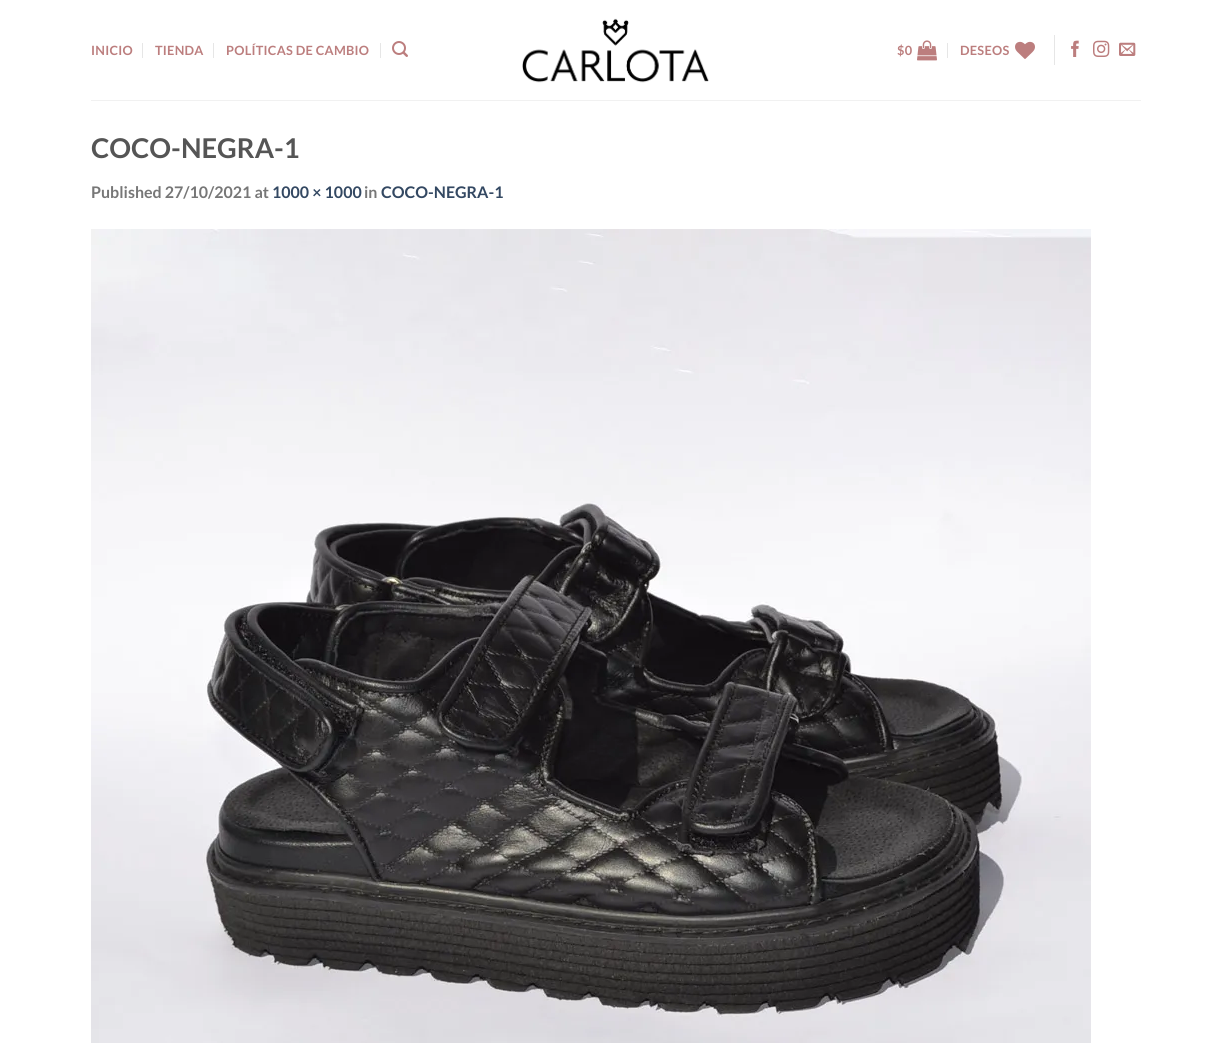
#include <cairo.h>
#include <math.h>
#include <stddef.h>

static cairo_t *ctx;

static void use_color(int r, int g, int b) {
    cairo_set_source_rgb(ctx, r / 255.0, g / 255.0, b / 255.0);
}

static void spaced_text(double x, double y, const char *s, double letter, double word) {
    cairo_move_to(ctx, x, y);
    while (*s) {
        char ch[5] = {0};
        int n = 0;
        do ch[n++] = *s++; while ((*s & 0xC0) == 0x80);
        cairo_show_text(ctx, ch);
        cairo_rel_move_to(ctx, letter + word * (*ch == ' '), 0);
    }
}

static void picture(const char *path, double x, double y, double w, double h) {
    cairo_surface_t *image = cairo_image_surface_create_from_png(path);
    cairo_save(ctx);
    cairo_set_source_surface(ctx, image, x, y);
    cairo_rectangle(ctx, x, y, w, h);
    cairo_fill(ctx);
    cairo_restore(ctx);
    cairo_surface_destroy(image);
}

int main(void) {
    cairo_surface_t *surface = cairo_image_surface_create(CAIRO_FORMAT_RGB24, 1231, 1043);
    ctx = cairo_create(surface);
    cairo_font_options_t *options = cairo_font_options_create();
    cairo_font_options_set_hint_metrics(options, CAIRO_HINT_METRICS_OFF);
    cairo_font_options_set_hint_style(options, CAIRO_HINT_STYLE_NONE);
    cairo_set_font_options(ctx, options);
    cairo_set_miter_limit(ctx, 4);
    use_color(255, 255, 255);
    cairo_paint(ctx);
    cairo_select_font_face(ctx, "Lato", CAIRO_FONT_SLANT_NORMAL, CAIRO_FONT_WEIGHT_BOLD);
    cairo_set_font_size(ctx, 12.75);
    use_color(188, 126, 126);
    spaced_text(91, 55, "INICIO", 0.25, 0);
    use_color(230, 230, 230);
    cairo_rectangle(ctx, 142, 43, 1, 15);
    cairo_fill(ctx);
    use_color(188, 126, 126);
    spaced_text(155, 55, "TIENDA", 0.25, 0);
    use_color(230, 230, 230);
    cairo_rectangle(ctx, 213, 43, 1, 15);
    cairo_fill(ctx);
    use_color(188, 126, 126);
    spaced_text(226, 55, "POLÍTICAS DE CAMBIO", 0.25, 0);
    use_color(230, 230, 230);
    cairo_rectangle(ctx, 380, 43, 1, 15);
    cairo_fill(ctx);
    picture("img1.png", 392, 41, 16, 16);
    picture("img2.png", 522, 18, 187, 65);
    use_color(188, 126, 126);
    spaced_text(897, 55, "$0", 0.25, 0);
    picture("img3.png", 917, 40, 20, 21);
    use_color(230, 230, 230);
    cairo_rectangle(ctx, 947, 43, 1, 15);
    cairo_fill(ctx);
    use_color(188, 126, 126);
    spaced_text(960, 55, "DESEOS", 0.25, 0);
    picture("img4.png", 1015, 41, 20, 18);
    use_color(230, 230, 230);
    cairo_rectangle(ctx, 1054, 35, 1, 30);
    cairo_fill(ctx);
    picture("img5.png", 1071, 40, 8, 17);
    picture("img6.png", 1093, 40, 17, 17);
    picture("img7.png", 1119, 42, 17, 14);
    use_color(241, 241, 241);
    cairo_rectangle(ctx, 91, 100, 1050, 1);
    cairo_fill(ctx);
    cairo_set_font_size(ctx, 27.25);
    use_color(85, 85, 85);
    cairo_move_to(ctx, 91, 158);
    cairo_show_text(ctx, "COCO-NEGRA-1");
    cairo_set_font_size(ctx, 16);
    use_color(119, 119, 119);
    cairo_move_to(ctx, 91, 198);
    cairo_show_text(ctx, "Published 27/10/2021 at");
    use_color(51, 72, 98);
    cairo_move_to(ctx, 272, 198);
    cairo_show_text(ctx, "1000 × 1000");
    use_color(119, 119, 119);
    cairo_move_to(ctx, 364, 198);
    cairo_show_text(ctx, "in");
    use_color(51, 72, 98);
    cairo_move_to(ctx, 381, 198);
    cairo_show_text(ctx, "COCO-NEGRA-1");
    picture("img8.png", 91, 229, 1000, 814);
    cairo_surface_write_to_png(surface, "result.png");
    cairo_font_options_destroy(options);
    cairo_destroy(ctx);
    cairo_surface_destroy(surface);
    return 0;
}
